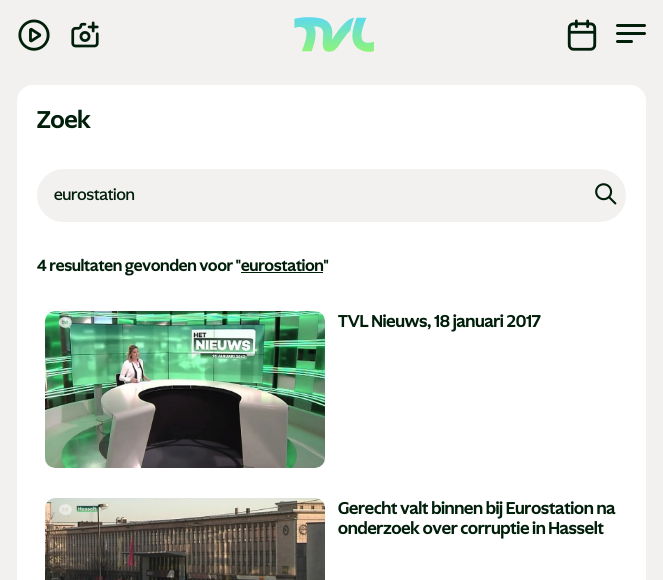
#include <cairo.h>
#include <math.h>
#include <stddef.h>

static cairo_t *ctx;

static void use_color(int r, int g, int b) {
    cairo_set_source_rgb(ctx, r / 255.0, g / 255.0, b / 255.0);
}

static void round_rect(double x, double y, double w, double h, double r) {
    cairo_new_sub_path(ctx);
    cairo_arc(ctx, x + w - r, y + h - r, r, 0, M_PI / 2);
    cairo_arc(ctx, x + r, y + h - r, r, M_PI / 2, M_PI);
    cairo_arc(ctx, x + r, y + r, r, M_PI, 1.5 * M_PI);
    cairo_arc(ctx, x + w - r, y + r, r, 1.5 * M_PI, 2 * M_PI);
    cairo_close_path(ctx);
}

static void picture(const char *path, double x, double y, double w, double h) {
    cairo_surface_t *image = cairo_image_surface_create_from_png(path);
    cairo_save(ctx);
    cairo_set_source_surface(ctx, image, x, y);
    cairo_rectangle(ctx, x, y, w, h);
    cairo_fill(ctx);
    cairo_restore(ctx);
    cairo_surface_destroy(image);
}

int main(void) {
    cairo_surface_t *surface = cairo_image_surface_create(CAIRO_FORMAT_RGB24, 663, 580);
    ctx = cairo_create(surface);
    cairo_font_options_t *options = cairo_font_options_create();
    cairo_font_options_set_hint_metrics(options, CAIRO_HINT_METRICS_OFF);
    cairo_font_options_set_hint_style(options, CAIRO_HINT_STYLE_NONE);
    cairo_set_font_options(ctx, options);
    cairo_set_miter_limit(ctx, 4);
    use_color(243, 241, 239);
    cairo_paint(ctx);
    picture("img1.png", 18, 19, 32, 32);
    picture("img2.png", 71, 21, 28, 27);
    picture("img3.png", 294, 17, 80, 35);
    picture("img4.png", 567, 19, 30, 32);
    use_color(0, 30, 9);
    round_rect(616, 24, 30, 3, 1.5);
    cairo_fill(ctx);
    round_rect(616, 32, 30, 3, 1.5);
    cairo_fill(ctx);
    round_rect(616, 40, 17, 3, 1.5);
    cairo_fill(ctx);
    use_color(255, 255, 255);
    round_rect(17, 85, 629, 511, 16);
    cairo_fill(ctx);
    cairo_select_font_face(ctx, "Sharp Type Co", CAIRO_FONT_SLANT_NORMAL, CAIRO_FONT_WEIGHT_BOLD);
    cairo_set_font_size(ctx, 25.5);
    use_color(0, 30, 9);
    cairo_move_to(ctx, 37, 128);
    cairo_show_text(ctx, "Zoek");
    use_color(243, 241, 239);
    round_rect(37, 169, 589, 53, 26.5);
    cairo_fill(ctx);
    cairo_select_font_face(ctx, "Sharp Type Co Medium", CAIRO_FONT_SLANT_NORMAL, CAIRO_FONT_WEIGHT_NORMAL);
    cairo_set_font_size(ctx, 17);
    use_color(0, 30, 9);
    cairo_move_to(ctx, 54, 200);
    cairo_show_text(ctx, "eurostation");
    picture("img5.png", 595, 183, 22, 22);
    cairo_select_font_face(ctx, "Sharp Type Co", CAIRO_FONT_SLANT_NORMAL, CAIRO_FONT_WEIGHT_BOLD);
    cairo_move_to(ctx, 37, 271);
    cairo_show_text(ctx, "4 resultaten gevonden voor \"eurostation\"");
    cairo_rectangle(ctx, 241, 272, 82, 1);
    cairo_fill(ctx);
    picture("img6.png", 45, 311, 280, 157);
    cairo_set_font_size(ctx, 18);
    cairo_move_to(ctx, 338, 327);
    cairo_show_text(ctx, "TVL Nieuws, 18 januari 2017");
    picture("img7.png", 45, 498, 280, 82);
    cairo_move_to(ctx, 338, 514);
    cairo_show_text(ctx, "Gerecht valt binnen bij Eurostation na");
    cairo_move_to(ctx, 338, 534);
    cairo_show_text(ctx, "onderzoek over corruptie in Hasselt");
    cairo_surface_write_to_png(surface, "result.png");
    cairo_font_options_destroy(options);
    cairo_destroy(ctx);
    cairo_surface_destroy(surface);
    return 0;
}
